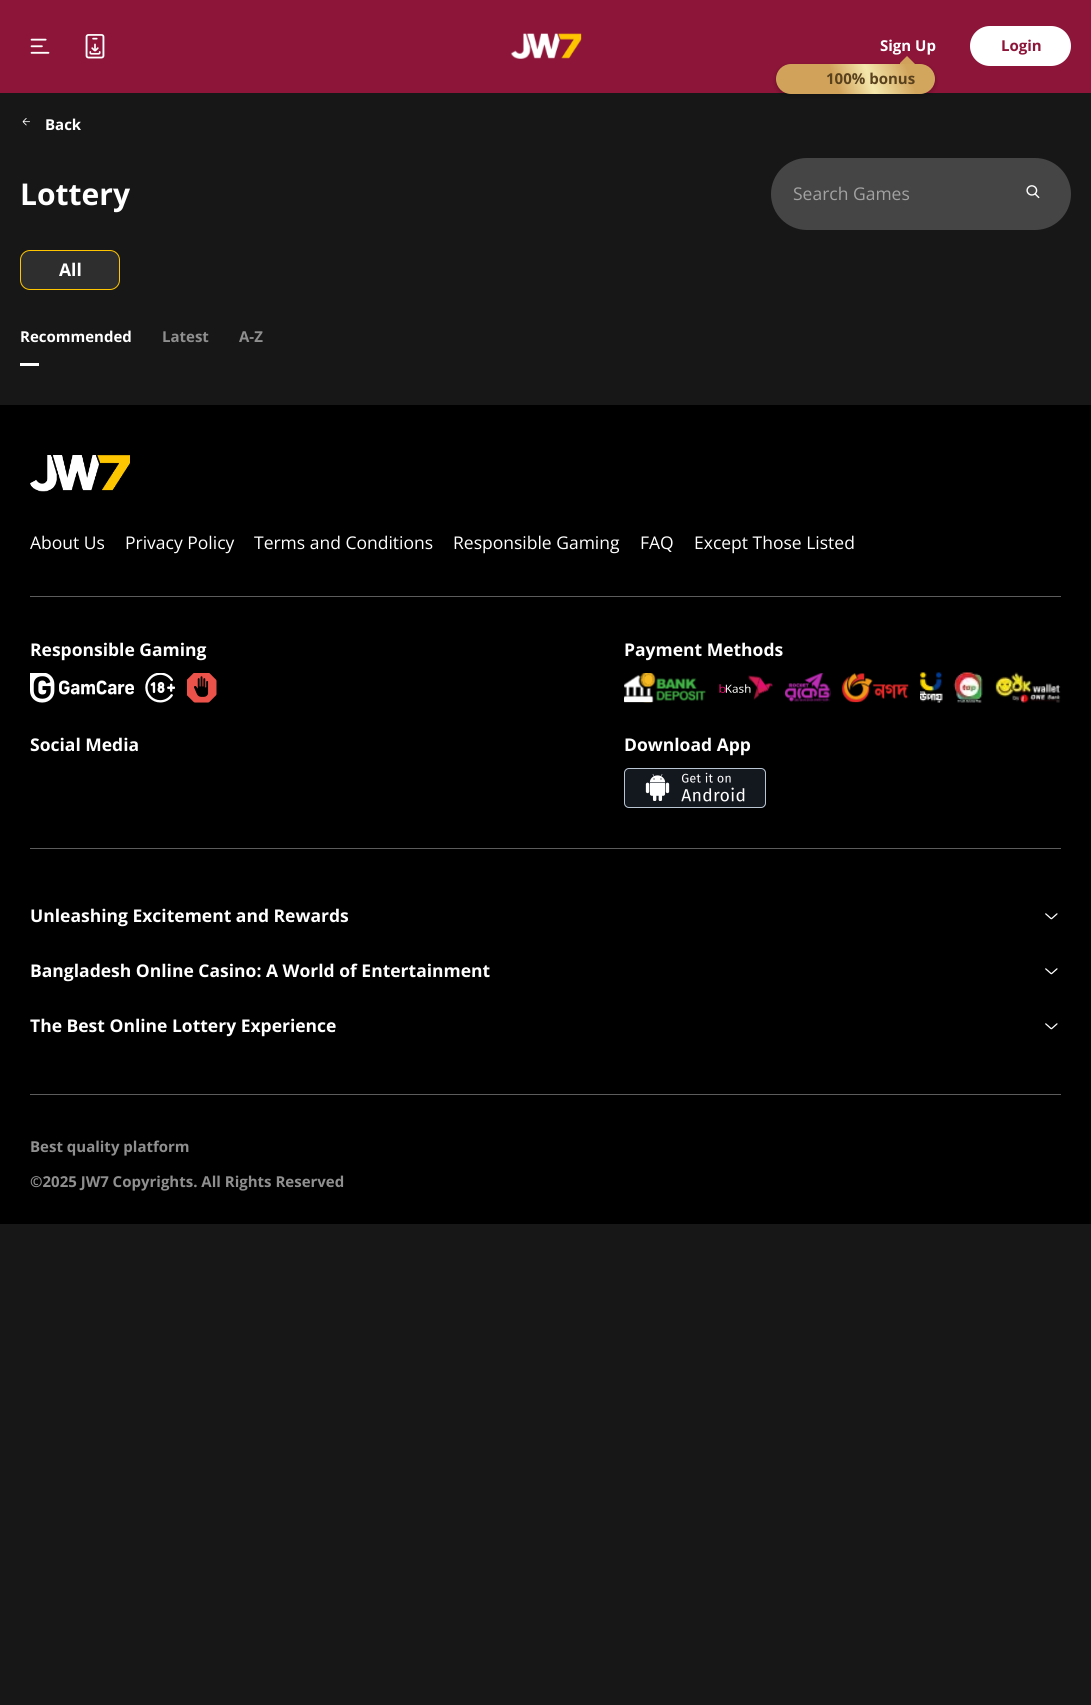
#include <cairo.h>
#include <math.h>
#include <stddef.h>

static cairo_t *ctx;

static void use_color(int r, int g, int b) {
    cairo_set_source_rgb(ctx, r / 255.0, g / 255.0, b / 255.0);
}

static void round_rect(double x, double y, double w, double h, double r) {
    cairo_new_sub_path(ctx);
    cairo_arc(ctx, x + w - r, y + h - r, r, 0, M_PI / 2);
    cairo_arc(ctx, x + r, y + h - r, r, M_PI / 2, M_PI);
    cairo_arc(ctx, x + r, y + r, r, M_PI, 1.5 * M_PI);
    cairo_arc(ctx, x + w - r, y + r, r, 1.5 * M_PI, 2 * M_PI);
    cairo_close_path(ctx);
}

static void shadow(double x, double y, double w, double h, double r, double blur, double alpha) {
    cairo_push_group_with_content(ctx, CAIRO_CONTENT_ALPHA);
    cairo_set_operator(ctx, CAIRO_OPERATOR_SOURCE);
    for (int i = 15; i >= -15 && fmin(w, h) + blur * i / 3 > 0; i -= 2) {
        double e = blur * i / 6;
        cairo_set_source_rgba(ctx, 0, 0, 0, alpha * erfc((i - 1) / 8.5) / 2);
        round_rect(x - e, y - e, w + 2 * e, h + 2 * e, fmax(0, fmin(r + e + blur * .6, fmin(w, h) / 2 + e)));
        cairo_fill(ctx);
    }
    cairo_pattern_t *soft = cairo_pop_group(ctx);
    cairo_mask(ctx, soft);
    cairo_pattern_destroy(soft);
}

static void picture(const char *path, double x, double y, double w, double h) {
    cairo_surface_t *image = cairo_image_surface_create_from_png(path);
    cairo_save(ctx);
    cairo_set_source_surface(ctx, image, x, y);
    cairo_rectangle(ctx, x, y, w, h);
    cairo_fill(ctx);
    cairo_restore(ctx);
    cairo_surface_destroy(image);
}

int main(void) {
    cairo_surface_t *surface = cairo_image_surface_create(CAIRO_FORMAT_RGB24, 1091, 1705);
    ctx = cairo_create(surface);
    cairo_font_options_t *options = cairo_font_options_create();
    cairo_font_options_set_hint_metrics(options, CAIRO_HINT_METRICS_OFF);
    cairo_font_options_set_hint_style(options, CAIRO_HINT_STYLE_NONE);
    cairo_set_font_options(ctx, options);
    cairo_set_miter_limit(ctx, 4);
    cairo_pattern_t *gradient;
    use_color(23, 23, 23);
    cairo_paint(ctx);
    use_color(141, 21, 58);
    cairo_rectangle(ctx, 0, 0, 1091, 93);
    cairo_fill(ctx);
    picture("img1.png", 30, 38, 20, 16);
    picture("img2.png", 85, 34, 20, 25);
    picture("img3.png", 510, 33, 72, 26);
    cairo_select_font_face(ctx, "Open Sans", CAIRO_FONT_SLANT_NORMAL, CAIRO_FONT_WEIGHT_BOLD);
    cairo_set_font_size(ctx, 15);
    use_color(255, 255, 255);
    cairo_move_to(ctx, 880, 51);
    cairo_show_text(ctx, "Sign Up");
    round_rect(970, 26, 101, 40, 20);
    cairo_fill(ctx);
    use_color(141, 21, 58);
    cairo_move_to(ctx, 1001, 51);
    cairo_show_text(ctx, "Login");
    use_color(0, 0, 0);
    shadow(776, 66, 159, 30, 15, 2.5, 0.25);
    gradient = cairo_pattern_create_linear(781, 106, 931, 51);
    cairo_pattern_add_color_stop_rgba(gradient, 0.37, 0.82, 0.635, 0.353, 1);
    cairo_pattern_add_color_stop_rgba(gradient, 0.58, 0.957, 0.906, 0.675, 1);
    cairo_pattern_add_color_stop_rgba(gradient, 0.82, 0.827, 0.651, 0.369, 1);
    cairo_set_source(ctx, gradient);
    cairo_pattern_destroy(gradient);
    round_rect(776, 64, 159, 30, 15);
    cairo_fill(ctx);
    cairo_save(ctx);
    cairo_rectangle(ctx, 900, 53, 15, 11);
    cairo_clip(ctx);
    use_color(209, 162, 91);
    cairo_new_path(ctx);
    cairo_move_to(ctx, 907, 56);
    cairo_line_to(ctx, 918, 67);
    cairo_line_to(ctx, 910.5, 74.5);
    cairo_line_to(ctx, 899.5, 63.5);
    cairo_close_path(ctx);
    cairo_fill(ctx);
    cairo_restore(ctx);
    use_color(89, 65, 29);
    cairo_move_to(ctx, 826, 84);
    cairo_show_text(ctx, "100% bonus");
    picture("img4.png", 22, 118, 8, 8);
    use_color(255, 255, 255);
    cairo_move_to(ctx, 45, 130);
    cairo_show_text(ctx, "Back");
    cairo_set_font_size(ctx, 30);
    cairo_move_to(ctx, 20, 205);
    cairo_show_text(ctx, "Lottery");
    use_color(69, 69, 69);
    round_rect(771, 158, 300, 72, 36);
    cairo_fill(ctx);
    cairo_select_font_face(ctx, "Open Sans", CAIRO_FONT_SLANT_NORMAL, CAIRO_FONT_WEIGHT_NORMAL);
    cairo_set_font_size(ctx, 17.5);
    use_color(162, 162, 162);
    cairo_move_to(ctx, 793, 200);
    cairo_show_text(ctx, "Search Games");
    picture("img5.png", 1026, 185, 14, 14);
    use_color(46, 46, 46);
    round_rect(20.5, 250.5, 99, 39, 9.5);
    cairo_fill_preserve(ctx);
    use_color(255, 198, 0);
    cairo_set_line_width(ctx, 1);
    cairo_stroke(ctx);
    cairo_select_font_face(ctx, "Open Sans", CAIRO_FONT_SLANT_NORMAL, CAIRO_FONT_WEIGHT_BOLD);
    use_color(255, 255, 255);
    cairo_move_to(ctx, 59, 276);
    cairo_show_text(ctx, "All");
    cairo_set_font_size(ctx, 15);
    cairo_move_to(ctx, 20, 342);
    cairo_show_text(ctx, "Recommended");
    cairo_rectangle(ctx, 20, 363, 19, 3);
    cairo_fill(ctx);
    use_color(143, 143, 143);
    cairo_move_to(ctx, 162, 342);
    cairo_show_text(ctx, "Latest");
    cairo_move_to(ctx, 239, 342);
    cairo_show_text(ctx, "A-Z");
    use_color(0, 0, 0);
    cairo_rectangle(ctx, 0, 405, 1091, 819);
    cairo_fill(ctx);
    picture("img6.png", 30, 455, 100, 37);
    cairo_select_font_face(ctx, "Open Sans", CAIRO_FONT_SLANT_NORMAL, CAIRO_FONT_WEIGHT_NORMAL);
    cairo_set_font_size(ctx, 17.5);
    use_color(255, 255, 255);
    cairo_move_to(ctx, 30, 549);
    cairo_show_text(ctx, "About Us");
    cairo_move_to(ctx, 125, 549);
    cairo_show_text(ctx, "Privacy Policy");
    cairo_move_to(ctx, 254, 549);
    cairo_show_text(ctx, "Terms and Conditions");
    cairo_move_to(ctx, 453, 549);
    cairo_show_text(ctx, "Responsible Gaming");
    cairo_move_to(ctx, 640, 549);
    cairo_show_text(ctx, "FAQ");
    cairo_move_to(ctx, 694, 549);
    cairo_show_text(ctx, "Except Those Listed");
    use_color(92, 92, 92);
    cairo_rectangle(ctx, 30, 596, 1031, 1);
    cairo_fill(ctx);
    cairo_select_font_face(ctx, "Open Sans", CAIRO_FONT_SLANT_NORMAL, CAIRO_FONT_WEIGHT_BOLD);
    use_color(255, 255, 255);
    cairo_move_to(ctx, 30, 656);
    cairo_show_text(ctx, "Responsible Gaming");
    picture("img7.png", 30, 673, 104, 30);
    picture("img8.png", 145, 673, 30, 30);
    picture("img9.png", 187, 673, 30, 30);
    cairo_move_to(ctx, 624, 656);
    cairo_show_text(ctx, "Payment Methods");
    picture("img10.png", 624, 673, 82, 30);
    picture("img11.png", 719, 675, 54, 25);
    picture("img12.png", 785, 673, 46, 30);
    picture("img13.png", 842, 673, 67, 30);
    picture("img14.png", 920, 672, 23, 31);
    picture("img15.png", 953, 672, 30, 31);
    picture("img16.png", 995, 672, 66, 31);
    cairo_move_to(ctx, 30, 751);
    cairo_show_text(ctx, "Social Media");
    cairo_move_to(ctx, 624, 751);
    cairo_show_text(ctx, "Download App");
    picture("img17.png", 624, 768, 142, 40);
    use_color(92, 92, 92);
    cairo_rectangle(ctx, 30, 848, 1031, 1);
    cairo_fill(ctx);
    use_color(255, 255, 255);
    cairo_move_to(ctx, 30, 922);
    cairo_show_text(ctx, "Unleashing Excitement and Rewards");
    picture("img18.png", 1045, 913, 13, 7);
    cairo_move_to(ctx, 30, 977);
    cairo_show_text(ctx, "Bangladesh Online Casino: A World of Entertainment");
    picture("img18.png", 1045, 968, 13, 7);
    cairo_move_to(ctx, 30, 1032);
    cairo_show_text(ctx, "The Best Online Lottery Experience");
    picture("img18.png", 1045, 1023, 13, 7);
    use_color(92, 92, 92);
    cairo_rectangle(ctx, 30, 1094, 1031, 1);
    cairo_fill(ctx);
    cairo_set_font_size(ctx, 15);
    use_color(143, 143, 143);
    cairo_move_to(ctx, 30, 1152);
    cairo_show_text(ctx, "Best quality platform");
    cairo_move_to(ctx, 30, 1187);
    cairo_show_text(ctx, "©2025 JW7 Copyrights. All Rights Reserved");
    cairo_surface_write_to_png(surface, "result.png");
    cairo_font_options_destroy(options);
    cairo_destroy(ctx);
    cairo_surface_destroy(surface);
    return 0;
}
